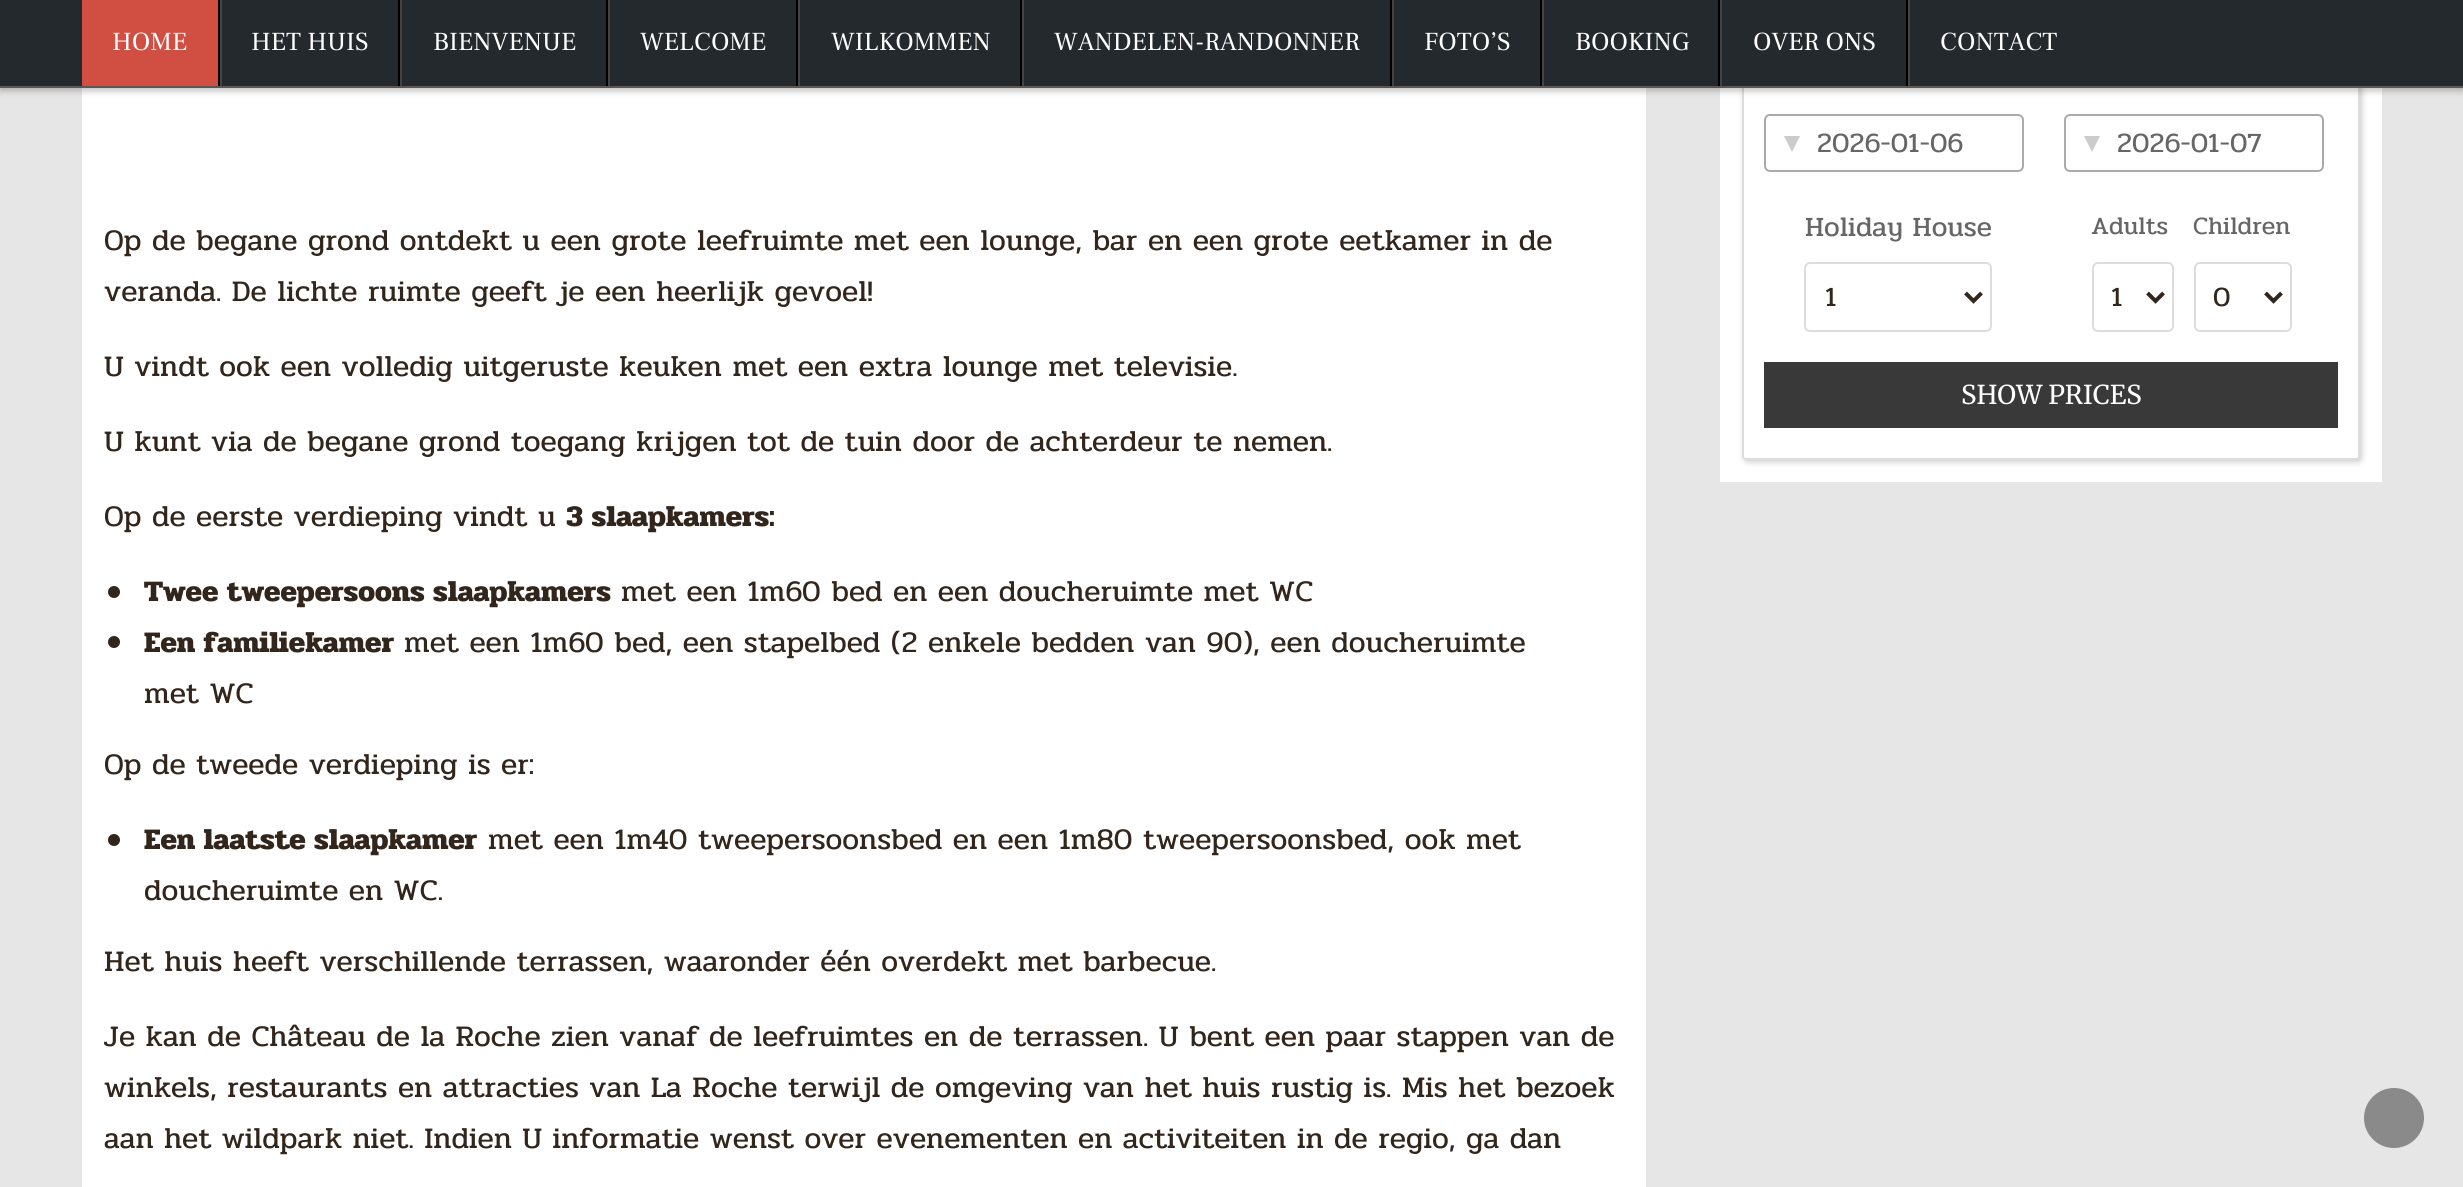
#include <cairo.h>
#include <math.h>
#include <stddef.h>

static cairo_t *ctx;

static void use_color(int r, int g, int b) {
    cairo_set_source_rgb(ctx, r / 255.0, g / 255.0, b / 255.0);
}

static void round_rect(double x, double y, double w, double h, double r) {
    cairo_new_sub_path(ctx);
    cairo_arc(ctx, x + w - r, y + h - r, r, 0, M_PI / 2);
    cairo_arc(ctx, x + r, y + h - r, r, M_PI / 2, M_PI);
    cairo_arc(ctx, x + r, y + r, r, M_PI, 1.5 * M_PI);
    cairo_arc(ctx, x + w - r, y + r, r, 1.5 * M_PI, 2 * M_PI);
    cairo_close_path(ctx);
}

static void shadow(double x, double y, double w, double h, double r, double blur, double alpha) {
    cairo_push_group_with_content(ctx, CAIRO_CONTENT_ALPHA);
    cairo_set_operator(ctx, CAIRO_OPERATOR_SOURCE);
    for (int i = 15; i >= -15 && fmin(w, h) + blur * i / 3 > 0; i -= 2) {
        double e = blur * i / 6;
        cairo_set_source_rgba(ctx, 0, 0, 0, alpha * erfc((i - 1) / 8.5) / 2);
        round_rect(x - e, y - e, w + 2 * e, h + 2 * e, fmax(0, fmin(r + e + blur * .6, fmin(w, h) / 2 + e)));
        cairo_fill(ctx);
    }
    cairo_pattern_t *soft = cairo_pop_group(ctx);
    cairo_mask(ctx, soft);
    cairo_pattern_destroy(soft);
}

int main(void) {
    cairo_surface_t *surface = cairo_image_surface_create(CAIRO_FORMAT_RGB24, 2463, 1187);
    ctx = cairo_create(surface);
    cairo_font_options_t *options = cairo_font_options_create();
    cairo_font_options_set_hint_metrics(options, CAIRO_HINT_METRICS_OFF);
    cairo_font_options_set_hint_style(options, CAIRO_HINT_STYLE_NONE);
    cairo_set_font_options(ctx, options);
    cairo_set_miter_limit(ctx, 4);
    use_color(230, 230, 230);
    cairo_paint(ctx);
    use_color(255, 255, 255);
    cairo_rectangle(ctx, 82, 88, 1564, 1099);
    cairo_fill(ctx);
    cairo_rectangle(ctx, 1720, 88, 662, 394);
    cairo_fill(ctx);
    use_color(0, 0, 0);
    shadow(1744, 24, 618, 438, 4, 3, 0.2);
    use_color(255, 255, 255);
    round_rect(1743, 23, 616, 436, 3);
    cairo_fill_preserve(ctx);
    use_color(221, 221, 221);
    cairo_stroke(ctx);
    use_color(0, 0, 0);
    shadow(0, 2, 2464, 88, 0, 4, 0.3);
    use_color(36, 41, 45);
    cairo_rectangle(ctx, 0, 0, 2463, 86);
    cairo_fill(ctx);
    use_color(90, 87, 87);
    cairo_rectangle(ctx, 0, 86, 2463, 2);
    cairo_fill(ctx);
    use_color(209, 79, 66);
    cairo_rectangle(ctx, 82, 0, 136, 86);
    cairo_fill(ctx);
    use_color(0, 0, 0);
    cairo_rectangle(ctx, 218, 0, 2, 86);
    cairo_fill(ctx);
    cairo_select_font_face(ctx, "Frank Ruhl Libre", CAIRO_FONT_SLANT_NORMAL, CAIRO_FONT_WEIGHT_NORMAL);
    cairo_set_font_size(ctx, 26);
    use_color(255, 255, 255);
    cairo_move_to(ctx, 112, 50);
    cairo_show_text(ctx, "HOME");
    use_color(0, 0, 0);
    cairo_rectangle(ctx, 398, 0, 2, 86);
    cairo_fill(ctx);
    use_color(68, 68, 68);
    cairo_rectangle(ctx, 220, 0, 2, 86);
    cairo_fill(ctx);
    use_color(255, 255, 255);
    cairo_move_to(ctx, 251, 50);
    cairo_show_text(ctx, "HET HUIS");
    use_color(0, 0, 0);
    cairo_rectangle(ctx, 606, 0, 2, 86);
    cairo_fill(ctx);
    use_color(68, 68, 68);
    cairo_rectangle(ctx, 400, 0, 2, 86);
    cairo_fill(ctx);
    use_color(255, 255, 255);
    cairo_move_to(ctx, 433, 50);
    cairo_show_text(ctx, "BIENVENUE");
    use_color(0, 0, 0);
    cairo_rectangle(ctx, 796, 0, 2, 86);
    cairo_fill(ctx);
    use_color(68, 68, 68);
    cairo_rectangle(ctx, 608, 0, 2, 86);
    cairo_fill(ctx);
    use_color(255, 255, 255);
    cairo_move_to(ctx, 640, 50);
    cairo_show_text(ctx, "WELCOME");
    use_color(0, 0, 0);
    cairo_rectangle(ctx, 1020, 0, 2, 86);
    cairo_fill(ctx);
    use_color(68, 68, 68);
    cairo_rectangle(ctx, 798, 0, 2, 86);
    cairo_fill(ctx);
    use_color(255, 255, 255);
    cairo_move_to(ctx, 831, 50);
    cairo_show_text(ctx, "WILKOMMEN");
    use_color(0, 0, 0);
    cairo_rectangle(ctx, 1390, 0, 2, 86);
    cairo_fill(ctx);
    use_color(68, 68, 68);
    cairo_rectangle(ctx, 1022, 0, 2, 86);
    cairo_fill(ctx);
    use_color(255, 255, 255);
    cairo_move_to(ctx, 1054, 50);
    cairo_show_text(ctx, "WANDELEN-RANDONNER");
    use_color(0, 0, 0);
    cairo_rectangle(ctx, 1540, 0, 2, 86);
    cairo_fill(ctx);
    use_color(68, 68, 68);
    cairo_rectangle(ctx, 1392, 0, 2, 86);
    cairo_fill(ctx);
    use_color(255, 255, 255);
    cairo_move_to(ctx, 1424, 50);
    cairo_show_text(ctx, "FOTO’S");
    use_color(0, 0, 0);
    cairo_rectangle(ctx, 1718, 0, 2, 86);
    cairo_fill(ctx);
    use_color(68, 68, 68);
    cairo_rectangle(ctx, 1542, 0, 2, 86);
    cairo_fill(ctx);
    use_color(255, 255, 255);
    cairo_move_to(ctx, 1575, 50);
    cairo_show_text(ctx, "BOOKING");
    use_color(0, 0, 0);
    cairo_rectangle(ctx, 1906, 0, 2, 86);
    cairo_fill(ctx);
    use_color(68, 68, 68);
    cairo_rectangle(ctx, 1720, 0, 2, 86);
    cairo_fill(ctx);
    use_color(255, 255, 255);
    cairo_move_to(ctx, 1753, 50);
    cairo_show_text(ctx, "OVER ONS");
    use_color(68, 68, 68);
    cairo_rectangle(ctx, 1908, 0, 2, 86);
    cairo_fill(ctx);
    use_color(255, 255, 255);
    cairo_move_to(ctx, 1940, 50);
    cairo_show_text(ctx, "CONTACT");
    cairo_select_font_face(ctx, "Pridi", CAIRO_FONT_SLANT_NORMAL, CAIRO_FONT_WEIGHT_NORMAL);
    cairo_set_font_size(ctx, 30);
    use_color(49, 37, 28);
    cairo_move_to(ctx, 104, 250);
    cairo_show_text(ctx, "Op de begane grond ontdekt u een grote leefruimte met een lounge, bar en een grote eetkamer in de");
    cairo_move_to(ctx, 104, 301);
    cairo_show_text(ctx, "veranda. De lichte ruimte geeft je een heerlijk gevoel!");
    cairo_move_to(ctx, 104, 376);
    cairo_show_text(ctx, "U vindt ook een volledig uitgeruste keuken met een extra lounge met televisie.");
    cairo_move_to(ctx, 104, 451);
    cairo_show_text(ctx, "U kunt via de begane grond toegang krijgen tot de tuin door de achterdeur te nemen.");
    cairo_move_to(ctx, 104, 526);
    cairo_show_text(ctx, "Op de eerste verdieping vindt u");
    cairo_select_font_face(ctx, "Pridi", CAIRO_FONT_SLANT_NORMAL, CAIRO_FONT_WEIGHT_BOLD);
    cairo_move_to(ctx, 566, 526);
    cairo_show_text(ctx, "3 slaapkamers:");
    cairo_new_path(ctx);
    cairo_arc(ctx, 114, 592, 6, 0, 2 * M_PI);
    cairo_fill(ctx);
    cairo_move_to(ctx, 144, 601);
    cairo_show_text(ctx, "Twee tweepersoons slaapkamers");
    cairo_select_font_face(ctx, "Pridi", CAIRO_FONT_SLANT_NORMAL, CAIRO_FONT_WEIGHT_NORMAL);
    cairo_move_to(ctx, 621, 601);
    cairo_show_text(ctx, "met een 1m60 bed en een doucheruimte met WC");
    cairo_new_path(ctx);
    cairo_arc(ctx, 114, 642, 6, 0, 2 * M_PI);
    cairo_fill(ctx);
    cairo_select_font_face(ctx, "Pridi", CAIRO_FONT_SLANT_NORMAL, CAIRO_FONT_WEIGHT_BOLD);
    cairo_move_to(ctx, 144, 652);
    cairo_show_text(ctx, "Een familiekamer");
    cairo_select_font_face(ctx, "Pridi", CAIRO_FONT_SLANT_NORMAL, CAIRO_FONT_WEIGHT_NORMAL);
    cairo_move_to(ctx, 404, 652);
    cairo_show_text(ctx, "met een 1m60 bed, een stapelbed (2 enkele bedden van 90), een doucheruimte");
    cairo_move_to(ctx, 144, 703);
    cairo_show_text(ctx, "met WC");
    cairo_move_to(ctx, 104, 774);
    cairo_show_text(ctx, "Op de tweede verdieping is er:");
    cairo_new_path(ctx);
    cairo_arc(ctx, 114, 840, 6, 0, 2 * M_PI);
    cairo_fill(ctx);
    cairo_select_font_face(ctx, "Pridi", CAIRO_FONT_SLANT_NORMAL, CAIRO_FONT_WEIGHT_BOLD);
    cairo_move_to(ctx, 144, 849);
    cairo_show_text(ctx, "Een laatste slaapkamer");
    cairo_select_font_face(ctx, "Pridi", CAIRO_FONT_SLANT_NORMAL, CAIRO_FONT_WEIGHT_NORMAL);
    cairo_move_to(ctx, 488, 849);
    cairo_show_text(ctx, "met een 1m40 tweepersoonsbed en een 1m80 tweepersoonsbed, ook met");
    cairo_move_to(ctx, 144, 900);
    cairo_show_text(ctx, "doucheruimte en WC.");
    cairo_move_to(ctx, 104, 971);
    cairo_show_text(ctx, "Het huis heeft verschillende terrassen, waaronder één overdekt met barbecue.");
    cairo_move_to(ctx, 104, 1046);
    cairo_show_text(ctx, "Je kan de Château de la Roche zien vanaf de leefruimtes en de terrassen. U bent een paar stappen van de");
    cairo_move_to(ctx, 104, 1097);
    cairo_show_text(ctx, "winkels, restaurants en attracties van La Roche terwijl de omgeving van het huis rustig is. Mis het bezoek");
    cairo_move_to(ctx, 104, 1148);
    cairo_show_text(ctx, "aan het wildpark niet. Indien U informatie wenst over evenementen en activiteiten in de regio, ga dan");
    round_rect(1765, 115, 258, 56, 5);
    use_color(170, 170, 170);
    cairo_stroke(ctx);
    use_color(204, 204, 204);
    cairo_new_path(ctx);
    cairo_move_to(ctx, 1784, 136);
    cairo_line_to(ctx, 1800, 136);
    cairo_line_to(ctx, 1792, 152);
    cairo_close_path(ctx);
    cairo_fill(ctx);
    cairo_set_font_size(ctx, 28);
    use_color(102, 102, 102);
    cairo_move_to(ctx, 1817, 152);
    cairo_show_text(ctx, "2026-01-06");
    round_rect(2065, 115, 258, 56, 5);
    use_color(170, 170, 170);
    cairo_stroke(ctx);
    use_color(204, 204, 204);
    cairo_new_path(ctx);
    cairo_move_to(ctx, 2084, 136);
    cairo_line_to(ctx, 2100, 136);
    cairo_line_to(ctx, 2092, 152);
    cairo_close_path(ctx);
    cairo_fill(ctx);
    use_color(102, 102, 102);
    cairo_move_to(ctx, 2117, 152);
    cairo_show_text(ctx, "2026-01-07");
    cairo_move_to(ctx, 1805, 236);
    cairo_show_text(ctx, "Holiday House");
    round_rect(1805, 263, 186, 68, 5);
    use_color(221, 221, 221);
    cairo_stroke(ctx);
    cairo_new_path(ctx);
    cairo_move_to(ctx, 1965.5, 293);
    cairo_line_to(ctx, 1973.5, 301);
    cairo_line_to(ctx, 1981.5, 293);
    use_color(49, 37, 28);
    cairo_set_line_width(ctx, 4);
    cairo_stroke(ctx);
    cairo_move_to(ctx, 1825, 306);
    cairo_show_text(ctx, "1");
    cairo_set_font_size(ctx, 25);
    use_color(102, 102, 102);
    cairo_move_to(ctx, 2091, 234);
    cairo_show_text(ctx, "Adults");
    round_rect(2093, 263, 80, 68, 5);
    use_color(221, 221, 221);
    cairo_set_line_width(ctx, 2);
    cairo_stroke(ctx);
    cairo_new_path(ctx);
    cairo_move_to(ctx, 2147.5, 293);
    cairo_line_to(ctx, 2155.5, 301);
    cairo_line_to(ctx, 2163.5, 293);
    use_color(49, 37, 28);
    cairo_set_line_width(ctx, 4);
    cairo_stroke(ctx);
    cairo_set_font_size(ctx, 28);
    cairo_move_to(ctx, 2111, 306);
    cairo_show_text(ctx, "1");
    cairo_set_font_size(ctx, 25);
    use_color(102, 102, 102);
    cairo_move_to(ctx, 2193, 234);
    cairo_show_text(ctx, "Children");
    round_rect(2195, 263, 96, 68, 5);
    use_color(221, 221, 221);
    cairo_set_line_width(ctx, 2);
    cairo_stroke(ctx);
    cairo_new_path(ctx);
    cairo_move_to(ctx, 2265.5, 293);
    cairo_line_to(ctx, 2273.5, 301);
    cairo_line_to(ctx, 2281.5, 293);
    use_color(49, 37, 28);
    cairo_set_line_width(ctx, 4);
    cairo_stroke(ctx);
    cairo_set_font_size(ctx, 28);
    cairo_move_to(ctx, 2213, 306);
    cairo_show_text(ctx, "0");
    use_color(57, 57, 57);
    cairo_rectangle(ctx, 1764, 362, 574, 66);
    cairo_fill(ctx);
    cairo_select_font_face(ctx, "Merriweather", CAIRO_FONT_SLANT_NORMAL, CAIRO_FONT_WEIGHT_NORMAL);
    cairo_set_font_size(ctx, 26);
    use_color(255, 255, 255);
    cairo_move_to(ctx, 1961, 404);
    cairo_show_text(ctx, "SHOW PRICES");
    use_color(138, 138, 138);
    cairo_new_path(ctx);
    cairo_arc(ctx, 2394, 1118, 29, 0, 2 * M_PI);
    cairo_fill_preserve(ctx);
    cairo_set_line_width(ctx, 2);
    cairo_stroke(ctx);
    cairo_surface_write_to_png(surface, "result.png");
    cairo_font_options_destroy(options);
    cairo_destroy(ctx);
    cairo_surface_destroy(surface);
    return 0;
}
